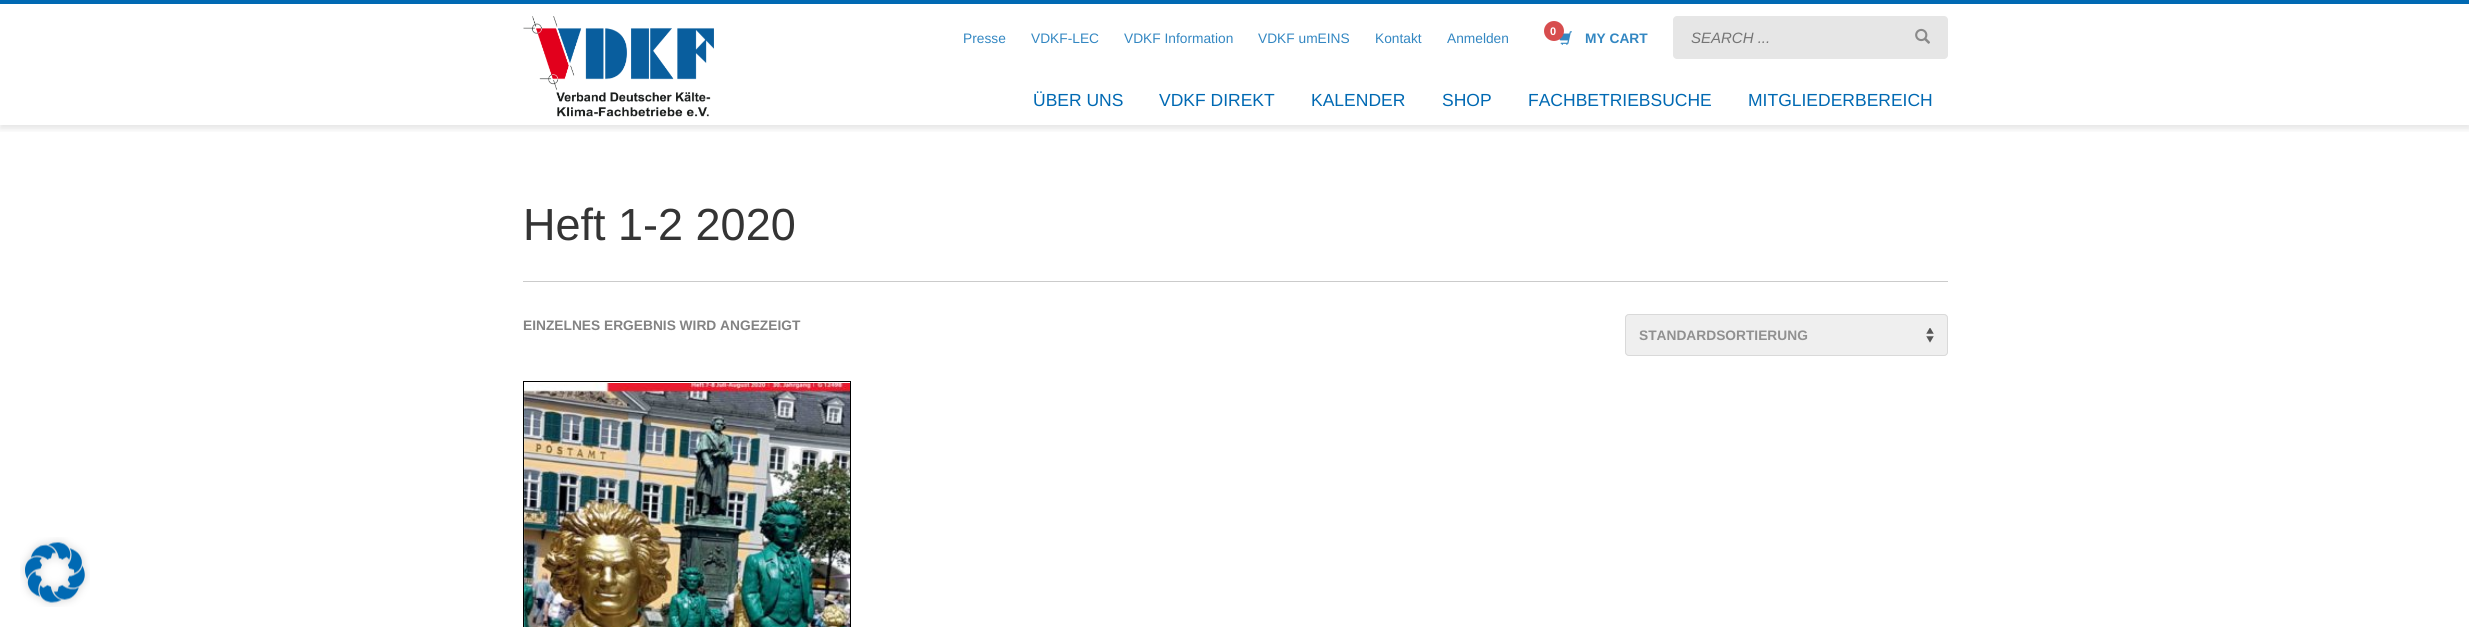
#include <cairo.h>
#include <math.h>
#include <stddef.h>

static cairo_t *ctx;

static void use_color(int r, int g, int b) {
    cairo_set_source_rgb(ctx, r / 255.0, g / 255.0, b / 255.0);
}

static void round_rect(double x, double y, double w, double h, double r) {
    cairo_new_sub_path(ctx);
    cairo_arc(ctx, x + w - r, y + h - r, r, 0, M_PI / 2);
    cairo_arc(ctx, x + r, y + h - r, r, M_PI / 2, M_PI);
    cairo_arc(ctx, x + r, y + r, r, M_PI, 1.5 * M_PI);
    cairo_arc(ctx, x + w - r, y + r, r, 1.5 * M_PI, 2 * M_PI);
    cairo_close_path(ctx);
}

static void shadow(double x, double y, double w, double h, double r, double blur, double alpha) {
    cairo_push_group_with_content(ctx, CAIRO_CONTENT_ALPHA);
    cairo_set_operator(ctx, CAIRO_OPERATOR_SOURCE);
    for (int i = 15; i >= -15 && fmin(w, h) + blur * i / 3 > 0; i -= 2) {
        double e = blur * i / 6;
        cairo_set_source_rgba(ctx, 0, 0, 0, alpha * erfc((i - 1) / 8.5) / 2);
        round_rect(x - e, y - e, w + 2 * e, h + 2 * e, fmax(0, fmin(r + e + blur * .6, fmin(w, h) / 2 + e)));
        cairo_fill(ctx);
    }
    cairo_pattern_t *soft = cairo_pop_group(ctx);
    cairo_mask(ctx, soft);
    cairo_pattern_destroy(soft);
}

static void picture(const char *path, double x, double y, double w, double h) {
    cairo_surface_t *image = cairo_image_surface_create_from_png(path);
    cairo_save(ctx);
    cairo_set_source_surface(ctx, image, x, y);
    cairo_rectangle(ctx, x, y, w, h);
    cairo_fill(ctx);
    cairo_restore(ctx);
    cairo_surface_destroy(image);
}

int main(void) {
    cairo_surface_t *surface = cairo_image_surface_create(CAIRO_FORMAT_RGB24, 2469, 627);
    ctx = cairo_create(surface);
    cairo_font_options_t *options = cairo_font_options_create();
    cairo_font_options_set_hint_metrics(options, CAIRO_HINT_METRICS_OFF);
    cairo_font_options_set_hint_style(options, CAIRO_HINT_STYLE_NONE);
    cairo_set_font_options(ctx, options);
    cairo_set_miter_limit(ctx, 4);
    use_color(255, 255, 255);
    cairo_paint(ctx);
    cairo_save(ctx);
    cairo_rectangle(ctx, 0, 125, 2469, 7);
    cairo_clip(ctx);
    use_color(0, 0, 0);
    shadow(0, 4, 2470, 125, 0, 3, 0.1);
    cairo_restore(ctx);
    use_color(0, 105, 179);
    cairo_rectangle(ctx, 0, 0, 2469, 4);
    cairo_fill(ctx);
    picture("img1.png", 523, 16, 191, 101);
    cairo_select_font_face(ctx, "Liberation Sans", CAIRO_FONT_SLANT_NORMAL, CAIRO_FONT_WEIGHT_NORMAL);
    cairo_set_font_size(ctx, 13.75);
    use_color(51, 135, 194);
    cairo_move_to(ctx, 963, 43);
    cairo_show_text(ctx, "Presse");
    cairo_move_to(ctx, 1031, 43);
    cairo_show_text(ctx, "VDKF-LEC");
    cairo_move_to(ctx, 1124, 43);
    cairo_show_text(ctx, "VDKF Information");
    cairo_move_to(ctx, 1258, 43);
    cairo_show_text(ctx, "VDKF umEINS");
    cairo_move_to(ctx, 1375, 43);
    cairo_show_text(ctx, "Kontakt");
    cairo_move_to(ctx, 1447, 43);
    cairo_show_text(ctx, "Anmelden");
    picture("img2.png", 1559, 31, 13, 14);
    use_color(215, 77, 78);
    cairo_arc(ctx, 1554, 31, 10, 0, 2 * M_PI);
    cairo_fill(ctx);
    cairo_select_font_face(ctx, "Liberation Sans", CAIRO_FONT_SLANT_NORMAL, CAIRO_FONT_WEIGHT_BOLD);
    cairo_set_font_size(ctx, 11);
    use_color(255, 255, 255);
    cairo_move_to(ctx, 1550, 35);
    cairo_show_text(ctx, "0");
    cairo_set_font_size(ctx, 13.75);
    use_color(51, 135, 194);
    cairo_move_to(ctx, 1585, 43);
    cairo_show_text(ctx, "MY CART");
    use_color(230, 230, 230);
    round_rect(1673, 16, 275, 43, 4);
    cairo_fill(ctx);
    cairo_select_font_face(ctx, "Liberation Sans", CAIRO_FONT_SLANT_ITALIC, CAIRO_FONT_WEIGHT_NORMAL);
    cairo_set_font_size(ctx, 15);
    use_color(117, 117, 117);
    cairo_move_to(ctx, 1691, 43);
    cairo_show_text(ctx, "SEARCH ...");
    picture("img3.png", 1915, 28, 15, 16);
    cairo_select_font_face(ctx, "Liberation Sans", CAIRO_FONT_SLANT_NORMAL, CAIRO_FONT_WEIGHT_NORMAL);
    cairo_set_font_size(ctx, 17.5);
    use_color(0, 105, 179);
    cairo_move_to(ctx, 1033, 106);
    cairo_show_text(ctx, "ÜBER UNS");
    cairo_move_to(ctx, 1159, 106);
    cairo_show_text(ctx, "VDKF DIREKT");
    cairo_move_to(ctx, 1311, 106);
    cairo_show_text(ctx, "KALENDER");
    cairo_move_to(ctx, 1442, 106);
    cairo_show_text(ctx, "SHOP");
    cairo_move_to(ctx, 1528, 106);
    cairo_show_text(ctx, "FACHBETRIEBSUCHE");
    cairo_move_to(ctx, 1748, 106);
    cairo_show_text(ctx, "MITGLIEDERBEREICH");
    use_color(203, 203, 203);
    cairo_rectangle(ctx, 523, 281, 1425, 1);
    cairo_fill(ctx);
    cairo_set_font_size(ctx, 45);
    use_color(52, 52, 52);
    cairo_move_to(ctx, 523, 240);
    cairo_show_text(ctx, "Heft 1-2 2020");
    cairo_select_font_face(ctx, "Liberation Sans", CAIRO_FONT_SLANT_NORMAL, CAIRO_FONT_WEIGHT_BOLD);
    cairo_set_font_size(ctx, 13.75);
    use_color(131, 131, 131);
    cairo_move_to(ctx, 523, 330);
    cairo_show_text(ctx, "EINZELNES ERGEBNIS WIRD ANGEZEIGT");
    use_color(239, 239, 239);
    round_rect(1625, 314, 323, 42, 4);
    cairo_fill(ctx);
    picture("img4.png", 1926, 328, 8, 15);
    round_rect(1625.5, 314.5, 322, 41, 3.5);
    use_color(217, 217, 217);
    cairo_set_line_width(ctx, 1);
    cairo_stroke(ctx);
    use_color(144, 144, 144);
    cairo_move_to(ctx, 1639, 340);
    cairo_show_text(ctx, "STANDARDSORTIERUNG");
    cairo_rectangle(ctx, 523.5, 381.5, 327, 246);
    use_color(0, 0, 0);
    cairo_stroke(ctx);
    picture("img5.png", 524, 383, 326, 244);
    picture("img6.png", 20, 537, 70, 70);
    cairo_surface_write_to_png(surface, "result.png");
    cairo_font_options_destroy(options);
    cairo_destroy(ctx);
    cairo_surface_destroy(surface);
    return 0;
}
